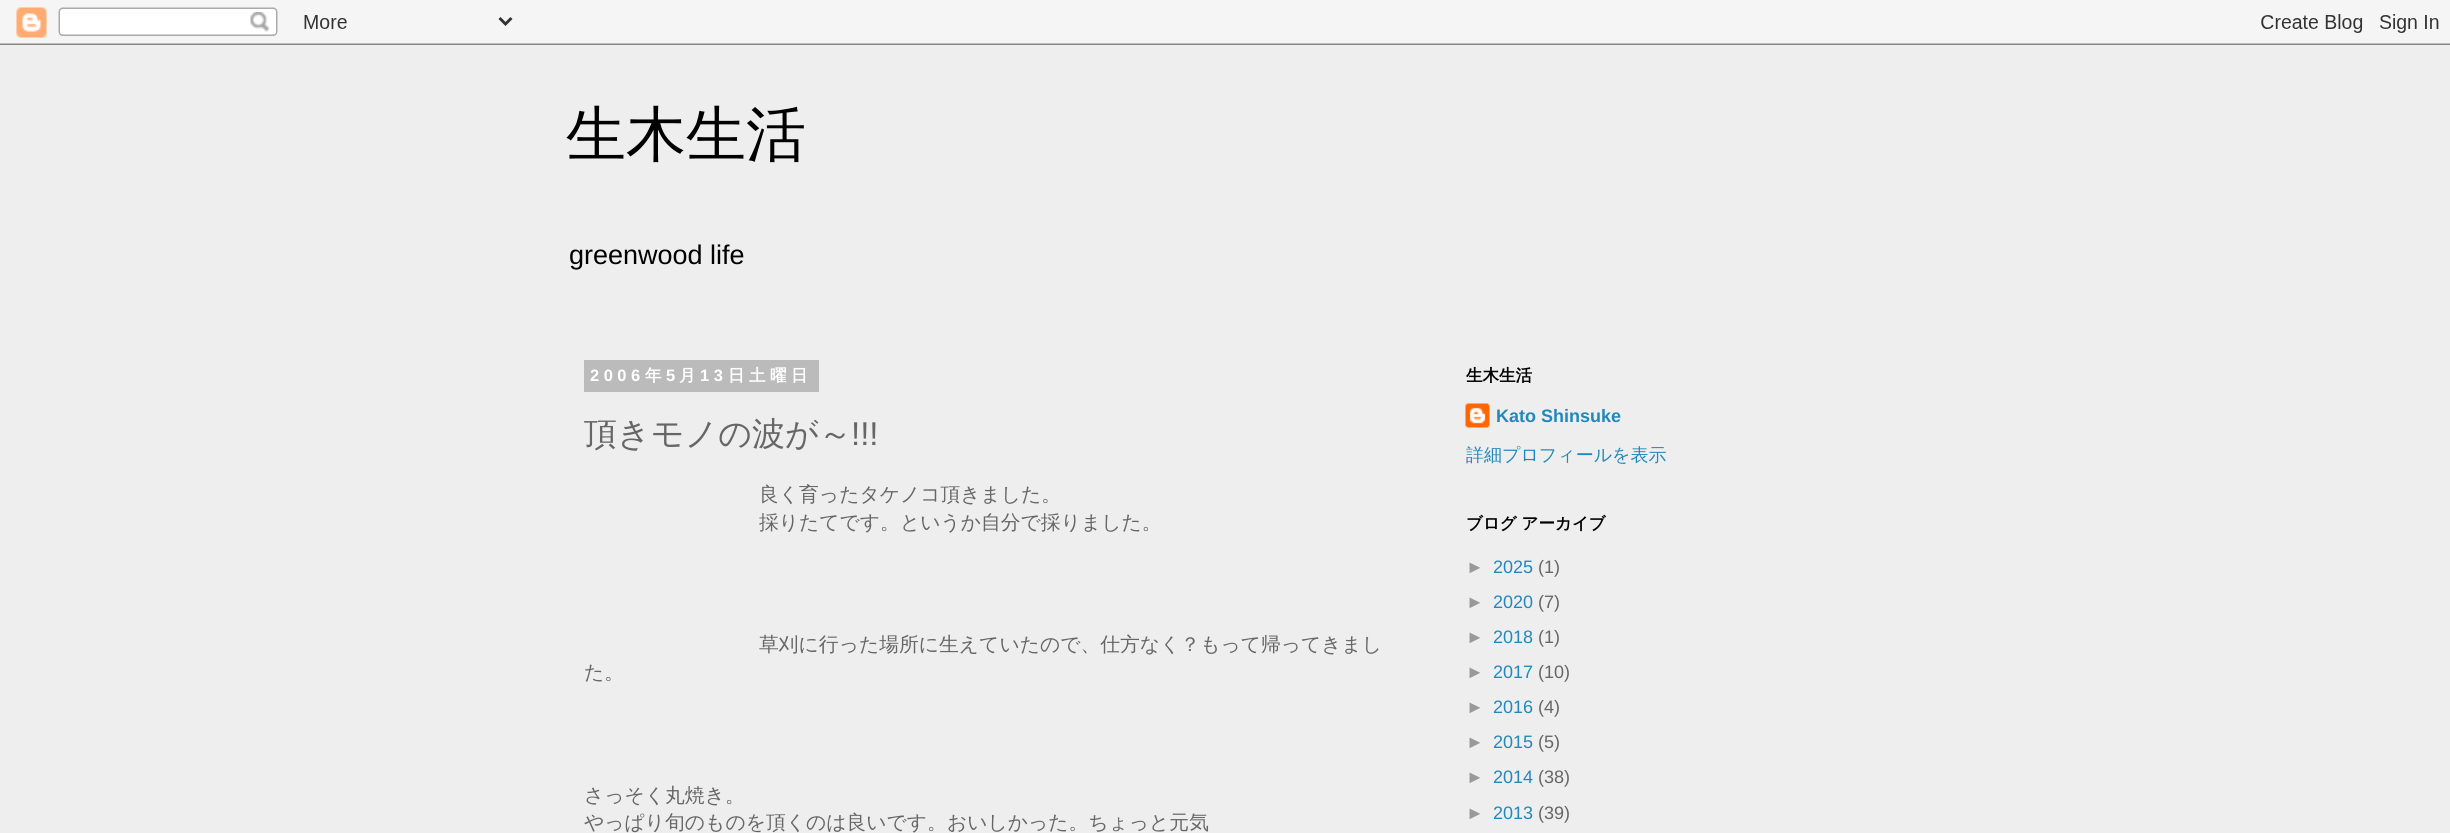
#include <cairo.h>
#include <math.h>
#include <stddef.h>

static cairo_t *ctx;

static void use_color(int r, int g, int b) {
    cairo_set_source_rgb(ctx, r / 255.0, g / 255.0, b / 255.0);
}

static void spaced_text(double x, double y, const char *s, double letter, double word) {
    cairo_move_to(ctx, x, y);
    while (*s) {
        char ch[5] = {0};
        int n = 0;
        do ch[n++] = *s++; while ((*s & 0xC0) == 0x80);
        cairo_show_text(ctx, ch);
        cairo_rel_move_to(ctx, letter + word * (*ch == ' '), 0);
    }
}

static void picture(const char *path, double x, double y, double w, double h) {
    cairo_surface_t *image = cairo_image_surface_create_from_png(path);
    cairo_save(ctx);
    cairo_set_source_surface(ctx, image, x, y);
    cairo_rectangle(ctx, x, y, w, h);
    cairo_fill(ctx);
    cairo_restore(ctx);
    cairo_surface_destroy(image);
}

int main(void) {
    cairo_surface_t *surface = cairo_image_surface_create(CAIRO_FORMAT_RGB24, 2450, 833);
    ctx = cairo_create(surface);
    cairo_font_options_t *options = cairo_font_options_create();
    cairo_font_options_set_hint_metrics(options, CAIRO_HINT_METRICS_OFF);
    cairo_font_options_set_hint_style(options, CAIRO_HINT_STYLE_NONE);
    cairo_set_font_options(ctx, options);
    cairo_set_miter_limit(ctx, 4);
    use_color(238, 238, 238);
    cairo_paint(ctx);
    picture("img1.png", 0, 0, 2450, 45);
    cairo_select_font_face(ctx, "WenQuanYi Zen Hei Medium", CAIRO_FONT_SLANT_NORMAL, CAIRO_FONT_WEIGHT_NORMAL);
    cairo_set_font_size(ctx, 60);
    use_color(0, 0, 0);
    cairo_move_to(ctx, 566, 155);
    cairo_show_text(ctx, "生木生活");
    cairo_select_font_face(ctx, "Liberation Sans", CAIRO_FONT_SLANT_NORMAL, CAIRO_FONT_WEIGHT_NORMAL);
    cairo_set_font_size(ctx, 27);
    cairo_move_to(ctx, 569, 264);
    cairo_show_text(ctx, "greenwood life");
    use_color(187, 187, 187);
    cairo_rectangle(ctx, 584, 360, 235, 32);
    cairo_fill(ctx);
    cairo_select_font_face(ctx, "Liberation Sans", CAIRO_FONT_SLANT_NORMAL, CAIRO_FONT_WEIGHT_BOLD);
    cairo_set_font_size(ctx, 16.5);
    use_color(255, 255, 255);
    spaced_text(590, 381, "2006", 4.5, 0);
    cairo_select_font_face(ctx, "WenQuanYi Zen Hei", CAIRO_FONT_SLANT_NORMAL, CAIRO_FONT_WEIGHT_BOLD);
    spaced_text(645, 381, "年", 4.5, 0);
    cairo_select_font_face(ctx, "Liberation Sans", CAIRO_FONT_SLANT_NORMAL, CAIRO_FONT_WEIGHT_BOLD);
    spaced_text(666, 381, "5", 4.5, 0);
    cairo_select_font_face(ctx, "WenQuanYi Zen Hei", CAIRO_FONT_SLANT_NORMAL, CAIRO_FONT_WEIGHT_BOLD);
    spaced_text(679, 381, "月", 4.5, 0);
    cairo_select_font_face(ctx, "Liberation Sans", CAIRO_FONT_SLANT_NORMAL, CAIRO_FONT_WEIGHT_BOLD);
    spaced_text(700, 381, "13", 4.5, 0);
    cairo_select_font_face(ctx, "WenQuanYi Zen Hei", CAIRO_FONT_SLANT_NORMAL, CAIRO_FONT_WEIGHT_BOLD);
    spaced_text(728, 381, "日土曜日", 4.5, 0);
    cairo_select_font_face(ctx, "WenQuanYi Zen Hei Medium", CAIRO_FONT_SLANT_NORMAL, CAIRO_FONT_WEIGHT_NORMAL);
    cairo_set_font_size(ctx, 33);
    use_color(102, 102, 102);
    cairo_move_to(ctx, 584, 445);
    cairo_show_text(ctx, "頂きモノの波が～");
    cairo_select_font_face(ctx, "Liberation Sans", CAIRO_FONT_SLANT_NORMAL, CAIRO_FONT_WEIGHT_NORMAL);
    cairo_move_to(ctx, 851, 445);
    cairo_show_text(ctx, "!!!");
    cairo_select_font_face(ctx, "WenQuanYi Zen Hei Medium", CAIRO_FONT_SLANT_NORMAL, CAIRO_FONT_WEIGHT_NORMAL);
    cairo_set_font_size(ctx, 19.8);
    cairo_move_to(ctx, 759, 501);
    cairo_show_text(ctx, "良く育ったタケノコ頂きました。");
    cairo_move_to(ctx, 759, 529);
    cairo_show_text(ctx, "採りたてです。というか自分で採りました。");
    cairo_move_to(ctx, 759, 651);
    cairo_show_text(ctx, "草刈に行った場所に生えていたので、仕方なく？もって帰ってきまし");
    cairo_move_to(ctx, 584, 679);
    cairo_show_text(ctx, "た。");
    cairo_move_to(ctx, 584, 802);
    cairo_show_text(ctx, "さっそく丸焼き。");
    cairo_move_to(ctx, 584, 829);
    cairo_show_text(ctx, "やっぱり旬のものを頂くのは良いです。おいしかった。ちょっと元気");
    cairo_select_font_face(ctx, "WenQuanYi Zen Hei", CAIRO_FONT_SLANT_NORMAL, CAIRO_FONT_WEIGHT_BOLD);
    cairo_set_font_size(ctx, 16.5);
    use_color(0, 0, 0);
    cairo_move_to(ctx, 1466, 381);
    cairo_show_text(ctx, "生木生活");
    picture("img2.png", 1465, 403, 25, 25);
    cairo_select_font_face(ctx, "Liberation Sans", CAIRO_FONT_SLANT_NORMAL, CAIRO_FONT_WEIGHT_BOLD);
    cairo_set_font_size(ctx, 18);
    use_color(34, 136, 187);
    cairo_move_to(ctx, 1496, 422);
    cairo_show_text(ctx, "Kato Shinsuke");
    cairo_select_font_face(ctx, "WenQuanYi Zen Hei Medium", CAIRO_FONT_SLANT_NORMAL, CAIRO_FONT_WEIGHT_NORMAL);
    cairo_move_to(ctx, 1466, 461);
    cairo_show_text(ctx, "詳細プロフィールを表示");
    cairo_select_font_face(ctx, "WenQuanYi Zen Hei", CAIRO_FONT_SLANT_NORMAL, CAIRO_FONT_WEIGHT_BOLD);
    cairo_set_font_size(ctx, 16.5);
    use_color(0, 0, 0);
    cairo_move_to(ctx, 1466, 529);
    cairo_show_text(ctx, "ブログ アーカイブ");
    cairo_select_font_face(ctx, "Liberation Sans", CAIRO_FONT_SLANT_NORMAL, CAIRO_FONT_WEIGHT_NORMAL);
    cairo_set_font_size(ctx, 18);
    use_color(153, 153, 153);
    cairo_move_to(ctx, 1466, 573);
    cairo_show_text(ctx, "►");
    use_color(34, 136, 187);
    cairo_move_to(ctx, 1493, 573);
    cairo_show_text(ctx, "2025");
    use_color(102, 102, 102);
    cairo_move_to(ctx, 1538, 573);
    cairo_show_text(ctx, "(1)");
    use_color(153, 153, 153);
    cairo_move_to(ctx, 1466, 608);
    cairo_show_text(ctx, "►");
    use_color(34, 136, 187);
    cairo_move_to(ctx, 1493, 608);
    cairo_show_text(ctx, "2020");
    use_color(102, 102, 102);
    cairo_move_to(ctx, 1538, 608);
    cairo_show_text(ctx, "(7)");
    use_color(153, 153, 153);
    cairo_move_to(ctx, 1466, 643);
    cairo_show_text(ctx, "►");
    use_color(34, 136, 187);
    cairo_move_to(ctx, 1493, 643);
    cairo_show_text(ctx, "2018");
    use_color(102, 102, 102);
    cairo_move_to(ctx, 1538, 643);
    cairo_show_text(ctx, "(1)");
    use_color(153, 153, 153);
    cairo_move_to(ctx, 1466, 678);
    cairo_show_text(ctx, "►");
    use_color(34, 136, 187);
    cairo_move_to(ctx, 1493, 678);
    cairo_show_text(ctx, "2017");
    use_color(102, 102, 102);
    cairo_move_to(ctx, 1538, 678);
    cairo_show_text(ctx, "(10)");
    use_color(153, 153, 153);
    cairo_move_to(ctx, 1466, 713);
    cairo_show_text(ctx, "►");
    use_color(34, 136, 187);
    cairo_move_to(ctx, 1493, 713);
    cairo_show_text(ctx, "2016");
    use_color(102, 102, 102);
    cairo_move_to(ctx, 1538, 713);
    cairo_show_text(ctx, "(4)");
    use_color(153, 153, 153);
    cairo_move_to(ctx, 1466, 748);
    cairo_show_text(ctx, "►");
    use_color(34, 136, 187);
    cairo_move_to(ctx, 1493, 748);
    cairo_show_text(ctx, "2015");
    use_color(102, 102, 102);
    cairo_move_to(ctx, 1538, 748);
    cairo_show_text(ctx, "(5)");
    use_color(153, 153, 153);
    cairo_move_to(ctx, 1466, 783);
    cairo_show_text(ctx, "►");
    use_color(34, 136, 187);
    cairo_move_to(ctx, 1493, 783);
    cairo_show_text(ctx, "2014");
    use_color(102, 102, 102);
    cairo_move_to(ctx, 1538, 783);
    cairo_show_text(ctx, "(38)");
    use_color(153, 153, 153);
    cairo_move_to(ctx, 1466, 819);
    cairo_show_text(ctx, "►");
    use_color(34, 136, 187);
    cairo_move_to(ctx, 1493, 819);
    cairo_show_text(ctx, "2013");
    use_color(102, 102, 102);
    cairo_move_to(ctx, 1538, 819);
    cairo_show_text(ctx, "(39)");
    cairo_surface_write_to_png(surface, "result.png");
    cairo_font_options_destroy(options);
    cairo_destroy(ctx);
    cairo_surface_destroy(surface);
    return 0;
}
